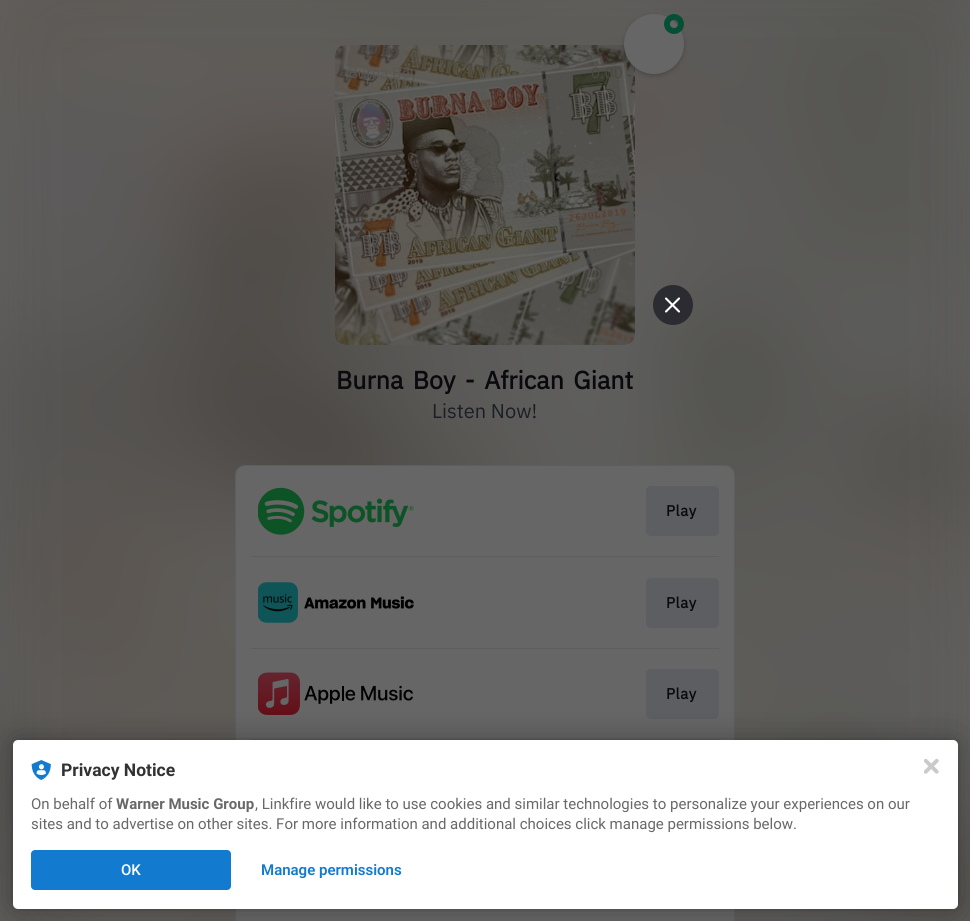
#include <cairo.h>
#include <math.h>
#include <stddef.h>

static cairo_t *ctx;

static void use_color(int r, int g, int b) {
    cairo_set_source_rgb(ctx, r / 255.0, g / 255.0, b / 255.0);
}

static void spaced_text(double x, double y, const char *s, double letter, double word) {
    cairo_move_to(ctx, x, y);
    while (*s) {
        char ch[5] = {0};
        int n = 0;
        do ch[n++] = *s++; while ((*s & 0xC0) == 0x80);
        cairo_show_text(ctx, ch);
        cairo_rel_move_to(ctx, letter + word * (*ch == ' '), 0);
    }
}

static void round_rect(double x, double y, double w, double h, double r) {
    cairo_new_sub_path(ctx);
    cairo_arc(ctx, x + w - r, y + h - r, r, 0, M_PI / 2);
    cairo_arc(ctx, x + r, y + h - r, r, M_PI / 2, M_PI);
    cairo_arc(ctx, x + r, y + r, r, M_PI, 1.5 * M_PI);
    cairo_arc(ctx, x + w - r, y + r, r, 1.5 * M_PI, 2 * M_PI);
    cairo_close_path(ctx);
}

static void shadow(double x, double y, double w, double h, double r, double blur, double alpha) {
    cairo_push_group_with_content(ctx, CAIRO_CONTENT_ALPHA);
    cairo_set_operator(ctx, CAIRO_OPERATOR_SOURCE);
    for (int i = 15; i >= -15 && fmin(w, h) + blur * i / 3 > 0; i -= 2) {
        double e = blur * i / 6;
        cairo_set_source_rgba(ctx, 0, 0, 0, alpha * erfc((i - 1) / 8.5) / 2);
        round_rect(x - e, y - e, w + 2 * e, h + 2 * e, fmax(0, fmin(r + e + blur * .6, fmin(w, h) / 2 + e)));
        cairo_fill(ctx);
    }
    cairo_pattern_t *soft = cairo_pop_group(ctx);
    cairo_mask(ctx, soft);
    cairo_pattern_destroy(soft);
}

static void picture(const char *path, double x, double y, double w, double h) {
    cairo_surface_t *image = cairo_image_surface_create_from_png(path);
    cairo_save(ctx);
    cairo_set_source_surface(ctx, image, x, y);
    cairo_rectangle(ctx, x, y, w, h);
    cairo_fill(ctx);
    cairo_restore(ctx);
    cairo_surface_destroy(image);
}

int main(void) {
    cairo_surface_t *surface = cairo_image_surface_create(CAIRO_FORMAT_RGB24, 970, 921);
    ctx = cairo_create(surface);
    cairo_font_options_t *options = cairo_font_options_create();
    cairo_font_options_set_hint_metrics(options, CAIRO_HINT_METRICS_OFF);
    cairo_font_options_set_hint_style(options, CAIRO_HINT_STYLE_NONE);
    cairo_set_font_options(ctx, options);
    cairo_set_miter_limit(ctx, 4);
    use_color(102, 102, 102);
    cairo_paint(ctx);
    picture("img1.png", 0, 0, 970, 921);
    picture("img2.png", 335, 45, 300, 300);
    use_color(0, 0, 0);
    shadow(624, 16, 60, 60, 30, 2.5, 0.2);
    use_color(102, 102, 102);
    cairo_arc(ctx, 654, 44, 30, 0, 2 * M_PI);
    cairo_fill(ctx);
    cairo_arc(ctx, 674, 24, 7, 0, 2 * M_PI);
    use_color(5, 79, 54);
    cairo_set_line_width(ctx, 6);
    cairo_stroke(ctx);
    cairo_set_source_rgba(ctx, 0.094, 0.09, 0.129, 0.7);
    cairo_arc(ctx, 673, 305, 20, 0, 2 * M_PI);
    cairo_fill(ctx);
    cairo_new_path(ctx);
    cairo_move_to(ctx, 666, 298.5);
    cairo_line_to(ctx, 679, 311.5);
    cairo_move_to(ctx, 666, 311.5);
    cairo_line_to(ctx, 679, 298.5);
    use_color(255, 255, 255);
    cairo_set_line_width(ctx, 2.1);
    cairo_set_line_cap(ctx, CAIRO_LINE_CAP_ROUND);
    cairo_set_line_join(ctx, CAIRO_LINE_JOIN_ROUND);
    cairo_stroke(ctx);
    cairo_select_font_face(ctx, "IBM Plex Sans", CAIRO_FONT_SLANT_NORMAL, CAIRO_FONT_WEIGHT_NORMAL);
    cairo_set_font_size(ctx, 15);
    use_color(88, 84, 78);
    cairo_move_to(ctx, 348, 78);
    cairo_show_text(ctx, "Burna Boy");
    use_color(73, 73, 65);
    cairo_move_to(ctx, 591, 78);
    cairo_show_text(ctx, "0:00");
    cairo_select_font_face(ctx, "IBM Plex Sans", CAIRO_FONT_SLANT_NORMAL, CAIRO_FONT_WEIGHT_BOLD);
    cairo_set_font_size(ctx, 25);
    use_color(10, 9, 13);
    spaced_text(336, 389, "Burna Boy - African Giant", 0, 3.5);
    cairo_select_font_face(ctx, "IBM Plex Sans", CAIRO_FONT_SLANT_NORMAL, CAIRO_FONT_WEIGHT_NORMAL);
    cairo_set_font_size(ctx, 20);
    use_color(28, 30, 38);
    cairo_move_to(ctx, 432, 418);
    cairo_show_text(ctx, "Listen Now!");
    round_rect(235.5, 465.5, 499, 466, 9.5);
    use_color(92, 94, 97);
    cairo_set_line_width(ctx, 1);
    cairo_set_line_cap(ctx, CAIRO_LINE_CAP_BUTT);
    cairo_set_line_join(ctx, CAIRO_LINE_JOIN_MITER);
    cairo_stroke(ctx);
    use_color(102, 102, 102);
    round_rect(236, 466, 498, 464, 9);
    cairo_fill(ctx);
    picture("img3.png", 258, 487, 156, 48);
    use_color(92, 94, 97);
    round_rect(646, 486, 73, 50, 5);
    cairo_fill(ctx);
    cairo_select_font_face(ctx, "IBM Plex Sans", CAIRO_FONT_SLANT_NORMAL, CAIRO_FONT_WEIGHT_BOLD);
    cairo_set_font_size(ctx, 15);
    use_color(10, 9, 13);
    spaced_text(666, 516, "Play", 0.5, 0);
    use_color(92, 94, 97);
    cairo_rectangle(ctx, 251, 556, 468, 1);
    cairo_fill(ctx);
    picture("img4.png", 258, 582, 156, 41);
    round_rect(646, 578, 73, 50, 5);
    cairo_fill(ctx);
    use_color(10, 9, 13);
    spaced_text(666, 608, "Play", 0.5, 0);
    use_color(92, 94, 97);
    cairo_rectangle(ctx, 251, 648, 468, 1);
    cairo_fill(ctx);
    picture("img5.png", 258, 672, 155, 43);
    round_rect(646, 669, 73, 50, 5);
    cairo_fill(ctx);
    use_color(10, 9, 13);
    spaced_text(666, 699, "Play", 0.5, 0);
    use_color(92, 94, 97);
    cairo_rectangle(ctx, 251, 739, 468, 1);
    cairo_fill(ctx);
    use_color(0, 0, 0);
    shadow(13, 740, 945, 169, 5, 2.5, 0.12);
    shadow(13, 740, 945, 169, 5, 15, 0.3);
    use_color(255, 255, 255);
    round_rect(13, 740, 945, 169, 5);
    cairo_fill(ctx);
    picture("img6.png", 31, 760, 20, 20);
    cairo_select_font_face(ctx, "Roboto", CAIRO_FONT_SLANT_NORMAL, CAIRO_FONT_WEIGHT_BOLD);
    cairo_set_font_size(ctx, 17.5);
    use_color(50, 50, 50);
    cairo_move_to(ctx, 61, 776);
    cairo_show_text(ctx, "Privacy Notice");
    cairo_select_font_face(ctx, "Roboto", CAIRO_FONT_SLANT_NORMAL, CAIRO_FONT_WEIGHT_NORMAL);
    cairo_set_font_size(ctx, 15);
    use_color(104, 104, 104);
    cairo_move_to(ctx, 31, 809);
    cairo_show_text(ctx, "On behalf of");
    cairo_select_font_face(ctx, "Roboto", CAIRO_FONT_SLANT_NORMAL, CAIRO_FONT_WEIGHT_BOLD);
    cairo_move_to(ctx, 116, 809);
    cairo_show_text(ctx, "Warner Music Group");
    cairo_select_font_face(ctx, "Roboto", CAIRO_FONT_SLANT_NORMAL, CAIRO_FONT_WEIGHT_NORMAL);
    cairo_move_to(ctx, 255, 809);
    cairo_show_text(ctx, ", Linkfire would like to use cookies and similar technologies to personalize your experiences on our");
    cairo_move_to(ctx, 31, 829);
    cairo_show_text(ctx, "sites and to advertise on other sites. For more information and additional choices click manage permissions below.");
    use_color(19, 123, 207);
    round_rect(31, 850, 200, 40, 4);
    cairo_fill(ctx);
    cairo_select_font_face(ctx, "Roboto Medium", CAIRO_FONT_SLANT_NORMAL, CAIRO_FONT_WEIGHT_NORMAL);
    use_color(255, 255, 255);
    cairo_move_to(ctx, 121, 875);
    cairo_show_text(ctx, "OK");
    cairo_select_font_face(ctx, "Roboto SemiBold", CAIRO_FONT_SLANT_NORMAL, CAIRO_FONT_WEIGHT_NORMAL);
    use_color(19, 123, 207);
    cairo_move_to(ctx, 261, 875);
    cairo_show_text(ctx, "Manage permissions");
    picture("img7.png", 924, 759, 15, 15);
    cairo_surface_write_to_png(surface, "result.png");
    cairo_font_options_destroy(options);
    cairo_destroy(ctx);
    cairo_surface_destroy(surface);
    return 0;
}
